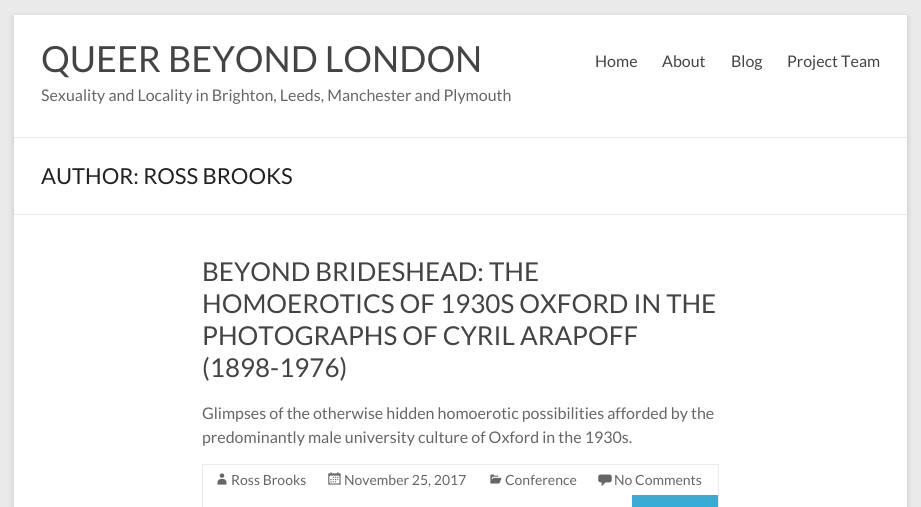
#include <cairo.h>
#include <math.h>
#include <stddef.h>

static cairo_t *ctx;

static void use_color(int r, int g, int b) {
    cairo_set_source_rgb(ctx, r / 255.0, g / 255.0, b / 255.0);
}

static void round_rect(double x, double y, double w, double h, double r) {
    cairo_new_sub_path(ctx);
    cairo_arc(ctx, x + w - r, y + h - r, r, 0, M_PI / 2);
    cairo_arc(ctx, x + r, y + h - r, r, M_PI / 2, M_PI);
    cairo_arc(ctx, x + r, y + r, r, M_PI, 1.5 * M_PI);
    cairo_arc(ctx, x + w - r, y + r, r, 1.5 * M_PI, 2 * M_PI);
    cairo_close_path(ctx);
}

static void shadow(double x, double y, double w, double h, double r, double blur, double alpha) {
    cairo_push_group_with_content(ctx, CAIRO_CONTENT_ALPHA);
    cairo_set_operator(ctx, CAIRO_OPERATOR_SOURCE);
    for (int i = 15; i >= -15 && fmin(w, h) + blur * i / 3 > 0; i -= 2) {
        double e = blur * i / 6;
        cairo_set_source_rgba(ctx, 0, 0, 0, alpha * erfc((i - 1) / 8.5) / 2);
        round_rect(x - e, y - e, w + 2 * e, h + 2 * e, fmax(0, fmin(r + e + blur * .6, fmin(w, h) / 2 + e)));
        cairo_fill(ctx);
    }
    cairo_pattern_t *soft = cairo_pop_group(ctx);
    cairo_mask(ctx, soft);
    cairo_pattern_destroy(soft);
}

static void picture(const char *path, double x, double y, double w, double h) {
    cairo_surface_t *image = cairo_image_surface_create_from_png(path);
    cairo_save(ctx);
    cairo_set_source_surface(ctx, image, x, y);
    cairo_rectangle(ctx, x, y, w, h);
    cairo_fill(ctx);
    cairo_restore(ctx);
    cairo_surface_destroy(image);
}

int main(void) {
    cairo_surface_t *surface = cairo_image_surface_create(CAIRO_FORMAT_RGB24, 921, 507);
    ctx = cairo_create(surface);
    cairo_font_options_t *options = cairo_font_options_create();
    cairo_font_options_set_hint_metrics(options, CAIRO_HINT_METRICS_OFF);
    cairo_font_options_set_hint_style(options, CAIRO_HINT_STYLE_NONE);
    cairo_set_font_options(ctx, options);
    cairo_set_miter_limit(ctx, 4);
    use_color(234, 234, 234);
    cairo_paint(ctx);
    use_color(100, 100, 100);
    shadow(14, 17, 893, 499, 0, 3, 0.3);
    use_color(255, 255, 255);
    cairo_rectangle(ctx, 14, 15, 893, 492);
    cairo_fill(ctx);
    use_color(234, 234, 234);
    cairo_rectangle(ctx, 14, 137, 893, 1);
    cairo_fill(ctx);
    cairo_select_font_face(ctx, "Lato", CAIRO_FONT_SLANT_NORMAL, CAIRO_FONT_WEIGHT_NORMAL);
    cairo_set_font_size(ctx, 36);
    use_color(68, 68, 68);
    cairo_move_to(ctx, 41, 72);
    cairo_show_text(ctx, "QUEER BEYOND LONDON");
    cairo_set_font_size(ctx, 16);
    use_color(102, 102, 102);
    cairo_move_to(ctx, 41, 101);
    cairo_show_text(ctx, "Sexuality and Locality in Brighton, Leeds, Manchester and Plymouth");
    use_color(68, 68, 68);
    cairo_move_to(ctx, 595, 67);
    cairo_show_text(ctx, "Home");
    cairo_move_to(ctx, 662, 67);
    cairo_show_text(ctx, "About");
    cairo_move_to(ctx, 731, 67);
    cairo_show_text(ctx, "Blog");
    cairo_move_to(ctx, 787, 67);
    cairo_show_text(ctx, "Project Team");
    use_color(234, 234, 234);
    cairo_rectangle(ctx, 14, 214, 893, 1);
    cairo_fill(ctx);
    cairo_set_font_size(ctx, 22);
    use_color(34, 34, 34);
    cairo_move_to(ctx, 41, 184);
    cairo_show_text(ctx, "AUTHOR: ROSS BROOKS");
    cairo_set_font_size(ctx, 26);
    use_color(68, 68, 68);
    cairo_move_to(ctx, 202, 281);
    cairo_show_text(ctx, "BEYOND BRIDESHEAD: THE");
    cairo_move_to(ctx, 202, 313);
    cairo_show_text(ctx, "HOMOEROTICS OF 1930S OXFORD IN THE");
    cairo_move_to(ctx, 202, 345);
    cairo_show_text(ctx, "PHOTOGRAPHS OF CYRIL ARAPOFF");
    cairo_move_to(ctx, 202, 377);
    cairo_show_text(ctx, "(1898-1976)");
    cairo_set_font_size(ctx, 16);
    use_color(102, 102, 102);
    cairo_move_to(ctx, 202, 419);
    cairo_show_text(ctx, "Glimpses of the otherwise hidden homoerotic possibilities afforded by the");
    cairo_move_to(ctx, 202, 443);
    cairo_show_text(ctx, "predominantly male university culture of Oxford in the 1930s.");
    cairo_rectangle(ctx, 202.5, 464.5, 516, 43);
    use_color(234, 234, 234);
    cairo_set_line_width(ctx, 1);
    cairo_stroke(ctx);
    picture("img1.png", 217, 473, 10, 12);
    cairo_set_font_size(ctx, 14);
    use_color(102, 102, 102);
    cairo_move_to(ctx, 231, 485);
    cairo_show_text(ctx, "Ross Brooks");
    picture("img2.png", 328, 472, 13, 13);
    cairo_move_to(ctx, 344, 485);
    cairo_show_text(ctx, "November 25, 2017");
    picture("img3.png", 490, 474, 12, 10);
    cairo_move_to(ctx, 505, 485);
    cairo_show_text(ctx, "Conference");
    picture("img4.png", 598, 474, 14, 13);
    cairo_move_to(ctx, 614, 485);
    cairo_show_text(ctx, "No Comments");
    use_color(57, 172, 214);
    cairo_rectangle(ctx, 632, 495, 86, 12);
    cairo_fill(ctx);
    cairo_surface_write_to_png(surface, "result.png");
    cairo_font_options_destroy(options);
    cairo_destroy(ctx);
    cairo_surface_destroy(surface);
    return 0;
}
